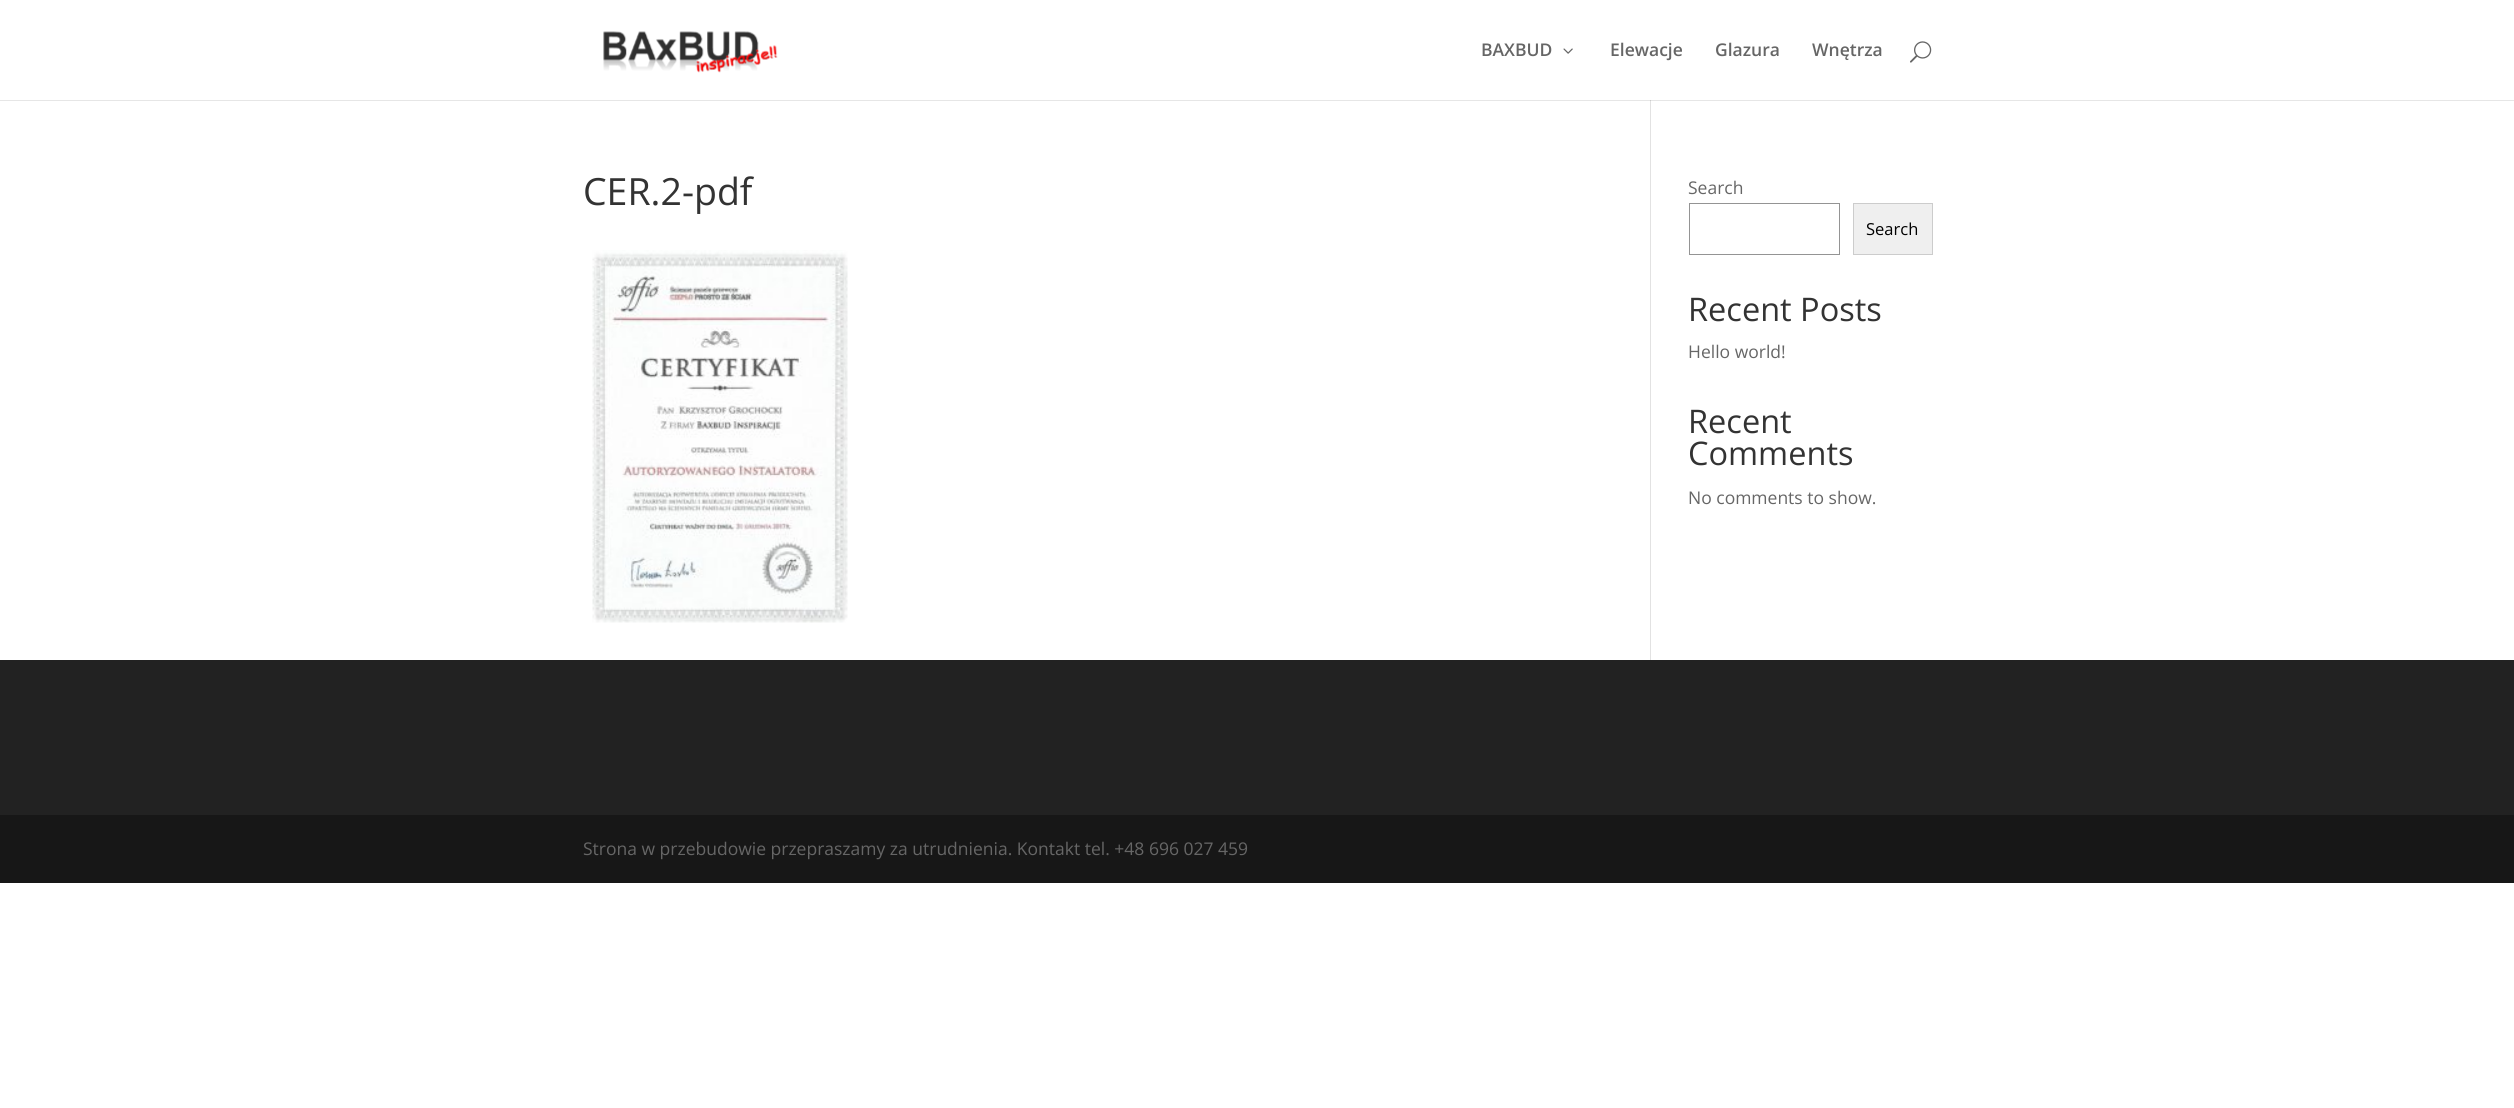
#include <cairo.h>
#include <math.h>
#include <stddef.h>

static cairo_t *ctx;

static void use_color(int r, int g, int b) {
    cairo_set_source_rgb(ctx, r / 255.0, g / 255.0, b / 255.0);
}

static void picture(const char *path, double x, double y, double w, double h) {
    cairo_surface_t *image = cairo_image_surface_create_from_png(path);
    cairo_save(ctx);
    cairo_set_source_surface(ctx, image, x, y);
    cairo_rectangle(ctx, x, y, w, h);
    cairo_fill(ctx);
    cairo_restore(ctx);
    cairo_surface_destroy(image);
}

int main(void) {
    cairo_surface_t *surface = cairo_image_surface_create(CAIRO_FORMAT_RGB24, 2514, 1108);
    ctx = cairo_create(surface);
    cairo_font_options_t *options = cairo_font_options_create();
    cairo_font_options_set_hint_metrics(options, CAIRO_HINT_METRICS_OFF);
    cairo_font_options_set_hint_style(options, CAIRO_HINT_STYLE_NONE);
    cairo_set_font_options(ctx, options);
    cairo_set_miter_limit(ctx, 4);
    use_color(255, 255, 255);
    cairo_paint(ctx);
    use_color(230, 230, 230);
    cairo_rectangle(ctx, 0, 100, 2514, 1);
    cairo_fill(ctx);
    picture("img1.png", 603, 31, 175, 42);
    cairo_select_font_face(ctx, "Open Sans SemiBold", CAIRO_FONT_SLANT_NORMAL, CAIRO_FONT_WEIGHT_NORMAL);
    cairo_set_font_size(ctx, 17.5);
    use_color(102, 102, 102);
    cairo_move_to(ctx, 1481, 56);
    cairo_show_text(ctx, "BAXBUD");
    picture("img2.png", 1563, 48, 10, 6);
    cairo_move_to(ctx, 1610, 56);
    cairo_show_text(ctx, "Elewacje");
    cairo_move_to(ctx, 1715, 56);
    cairo_show_text(ctx, "Glazura");
    cairo_move_to(ctx, 1812, 56);
    cairo_show_text(ctx, "Wnętrza");
    picture("img3.png", 1910, 41, 22, 22);
    use_color(226, 226, 226);
    cairo_rectangle(ctx, 1650, 100, 1, 560);
    cairo_fill(ctx);
    use_color(203, 203, 203);
    cairo_rectangle(ctx, 1650, 100, 1, 1);
    cairo_fill(ctx);
    cairo_select_font_face(ctx, "Open Sans", CAIRO_FONT_SLANT_NORMAL, CAIRO_FONT_WEIGHT_NORMAL);
    cairo_set_font_size(ctx, 37.5);
    use_color(51, 51, 51);
    cairo_move_to(ctx, 583, 205);
    cairo_show_text(ctx, "CER.2-pdf");
    picture("img4.png", 592, 250, 256, 373);
    cairo_set_font_size(ctx, 17.5);
    use_color(102, 102, 102);
    cairo_move_to(ctx, 1688, 194);
    cairo_show_text(ctx, "Search");
    cairo_rectangle(ctx, 1689.5, 203.5, 150, 51);
    use_color(148, 148, 148);
    cairo_set_line_width(ctx, 1);
    cairo_stroke(ctx);
    use_color(239, 239, 239);
    cairo_rectangle(ctx, 1853.5, 203.5, 79, 51);
    cairo_fill_preserve(ctx);
    use_color(204, 204, 204);
    cairo_stroke(ctx);
    cairo_set_font_size(ctx, 16.5);
    use_color(0, 0, 0);
    cairo_move_to(ctx, 1866, 235);
    cairo_show_text(ctx, "Search");
    cairo_set_font_size(ctx, 32.5);
    use_color(51, 51, 51);
    cairo_move_to(ctx, 1688, 321);
    cairo_show_text(ctx, "Recent Posts");
    cairo_set_font_size(ctx, 17.5);
    use_color(102, 102, 102);
    cairo_move_to(ctx, 1688, 358);
    cairo_show_text(ctx, "Hello world!");
    cairo_set_font_size(ctx, 32.5);
    use_color(51, 51, 51);
    cairo_move_to(ctx, 1688, 433);
    cairo_show_text(ctx, "Recent");
    cairo_move_to(ctx, 1688, 465);
    cairo_show_text(ctx, "Comments");
    cairo_set_font_size(ctx, 17.5);
    use_color(102, 102, 102);
    cairo_move_to(ctx, 1688, 504);
    cairo_show_text(ctx, "No comments to show.");
    use_color(34, 34, 34);
    cairo_rectangle(ctx, 0, 660, 2514, 155);
    cairo_fill(ctx);
    use_color(23, 23, 23);
    cairo_rectangle(ctx, 0, 815, 2514, 68);
    cairo_fill(ctx);
    use_color(102, 102, 102);
    cairo_move_to(ctx, 583, 855);
    cairo_show_text(ctx, "Strona w przebudowie przepraszamy za utrudnienia. Kontakt tel. +48 696 027 459");
    cairo_surface_write_to_png(surface, "result.png");
    cairo_font_options_destroy(options);
    cairo_destroy(ctx);
    cairo_surface_destroy(surface);
    return 0;
}
